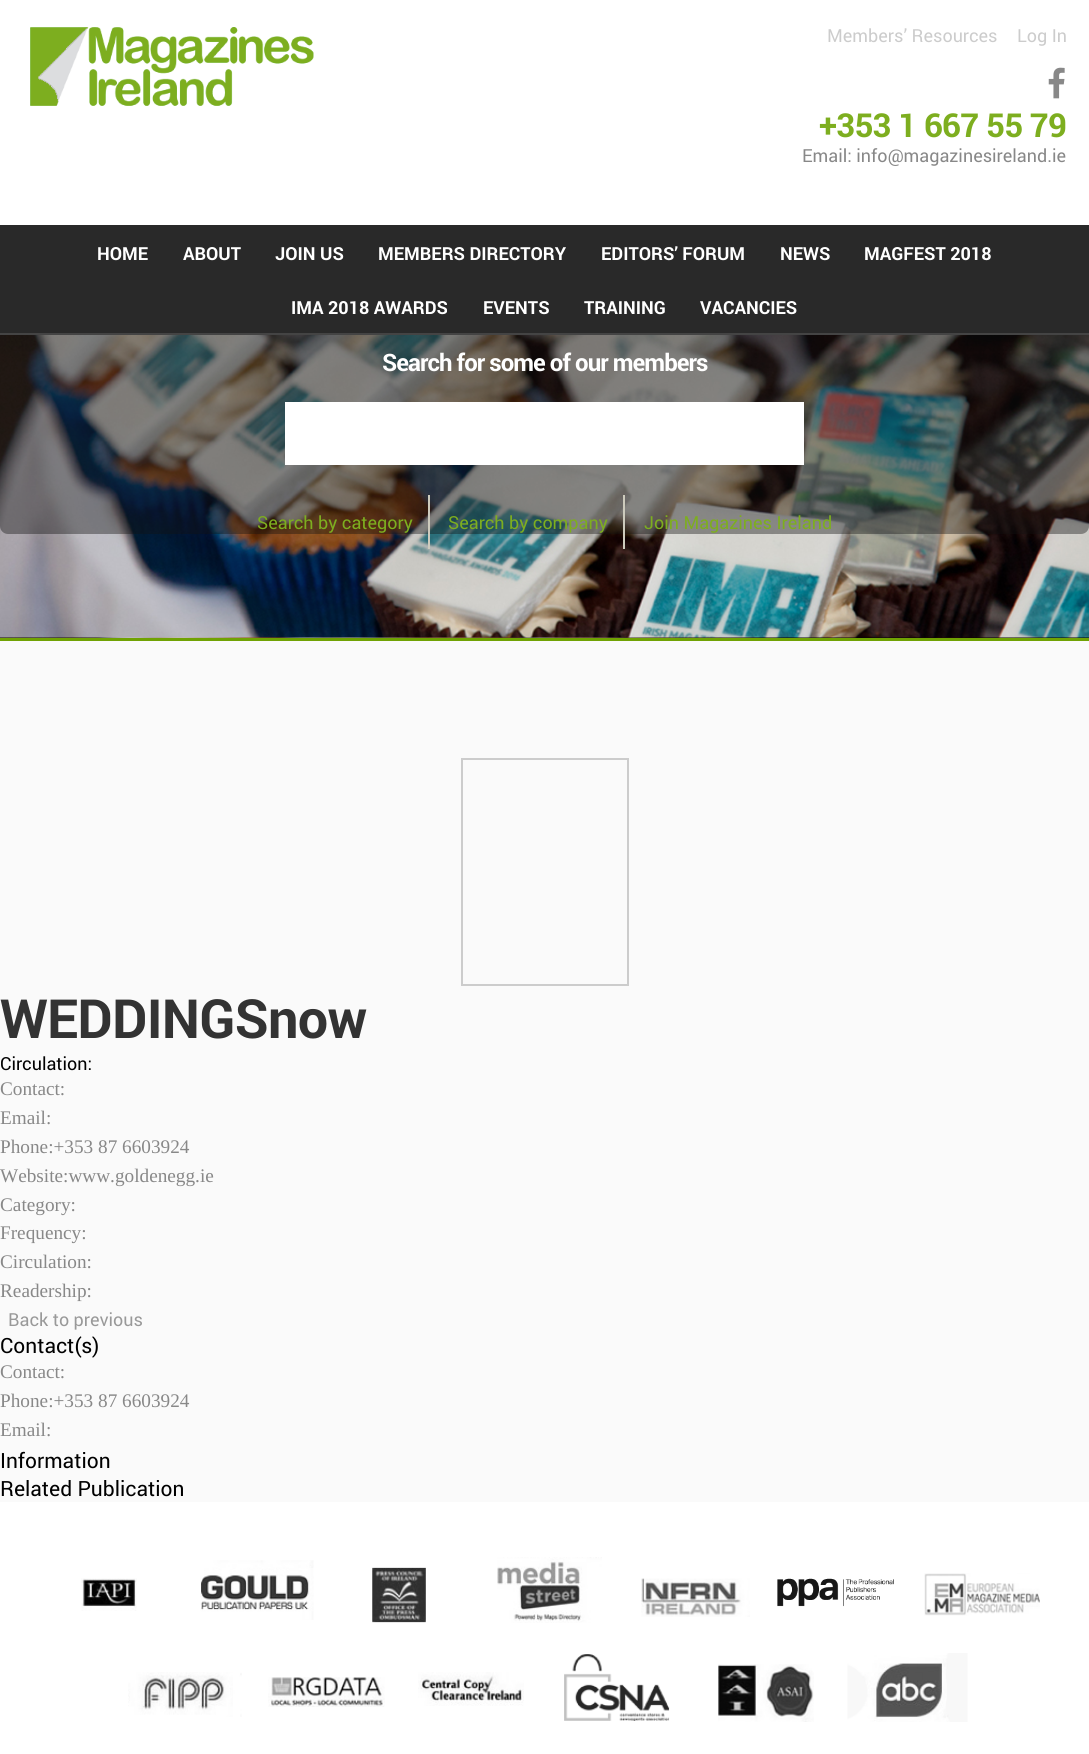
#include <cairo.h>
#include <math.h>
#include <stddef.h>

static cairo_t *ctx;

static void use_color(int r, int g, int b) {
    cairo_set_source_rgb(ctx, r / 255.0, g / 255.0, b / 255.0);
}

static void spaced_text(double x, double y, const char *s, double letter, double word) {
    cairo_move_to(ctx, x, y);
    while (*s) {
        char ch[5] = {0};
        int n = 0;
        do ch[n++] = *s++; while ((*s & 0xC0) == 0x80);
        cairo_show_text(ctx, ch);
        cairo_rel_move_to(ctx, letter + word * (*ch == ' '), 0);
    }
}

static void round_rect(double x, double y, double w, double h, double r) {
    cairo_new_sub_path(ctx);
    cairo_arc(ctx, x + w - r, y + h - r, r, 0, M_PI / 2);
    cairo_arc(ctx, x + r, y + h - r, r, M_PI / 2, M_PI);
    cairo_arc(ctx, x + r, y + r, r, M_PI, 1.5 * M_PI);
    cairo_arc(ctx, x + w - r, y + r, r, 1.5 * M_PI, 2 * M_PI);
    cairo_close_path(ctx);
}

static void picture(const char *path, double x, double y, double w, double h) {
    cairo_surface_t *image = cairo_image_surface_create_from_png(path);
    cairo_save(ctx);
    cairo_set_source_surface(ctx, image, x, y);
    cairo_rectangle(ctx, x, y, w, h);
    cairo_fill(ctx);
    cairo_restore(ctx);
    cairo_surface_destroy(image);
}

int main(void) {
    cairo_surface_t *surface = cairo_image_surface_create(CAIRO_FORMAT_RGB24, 1089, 1754);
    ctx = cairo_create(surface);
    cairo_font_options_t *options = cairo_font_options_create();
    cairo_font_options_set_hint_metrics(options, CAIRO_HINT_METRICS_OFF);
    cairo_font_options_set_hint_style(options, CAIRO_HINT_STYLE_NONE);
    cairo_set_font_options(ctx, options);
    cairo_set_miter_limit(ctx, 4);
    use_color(250, 250, 250);
    cairo_paint(ctx);
    use_color(255, 255, 255);
    cairo_rectangle(ctx, 0, 0, 1089, 225);
    cairo_fill(ctx);
    picture("img1.png", 30, 27, 284, 79);
    cairo_select_font_face(ctx, "Roboto", CAIRO_FONT_SLANT_NORMAL, CAIRO_FONT_WEIGHT_NORMAL);
    cairo_set_font_size(ctx, 18);
    use_color(204, 204, 204);
    cairo_move_to(ctx, 827, 42);
    cairo_show_text(ctx, "Members’ Resources");
    cairo_move_to(ctx, 1017, 42);
    cairo_show_text(ctx, "Log In");
    picture("img2.png", 1048, 67, 17, 32);
    cairo_select_font_face(ctx, "Roboto", CAIRO_FONT_SLANT_NORMAL, CAIRO_FONT_WEIGHT_BOLD);
    cairo_set_font_size(ctx, 33);
    use_color(125, 174, 31);
    spaced_text(819, 137, "+353 1 667 55 79", -0.75, 0);
    cairo_select_font_face(ctx, "Roboto", CAIRO_FONT_SLANT_NORMAL, CAIRO_FONT_WEIGHT_NORMAL);
    cairo_set_font_size(ctx, 18);
    use_color(136, 136, 136);
    cairo_move_to(ctx, 802, 162);
    cairo_show_text(ctx, "Email: info@magazinesireland.ie");
    picture("img3.png", 0, 335, 1089, 303);
    cairo_set_source_rgba(ctx, 0.078, 0.078, 0.078, 0.4);
    round_rect(0, 323, 1089, 211, 8);
    cairo_fill(ctx);
    use_color(41, 41, 41);
    cairo_rectangle(ctx, 0, 225, 1089, 108);
    cairo_fill(ctx);
    use_color(68, 68, 68);
    cairo_rectangle(ctx, 0, 333, 1089, 2);
    cairo_fill(ctx);
    cairo_select_font_face(ctx, "Roboto", CAIRO_FONT_SLANT_NORMAL, CAIRO_FONT_WEIGHT_BOLD);
    use_color(255, 255, 255);
    cairo_move_to(ctx, 97, 260);
    cairo_show_text(ctx, "HOME");
    cairo_move_to(ctx, 183, 260);
    cairo_show_text(ctx, "ABOUT");
    cairo_move_to(ctx, 275, 260);
    cairo_show_text(ctx, "JOIN US");
    cairo_move_to(ctx, 378, 260);
    cairo_show_text(ctx, "MEMBERS DIRECTORY");
    cairo_move_to(ctx, 601, 260);
    cairo_show_text(ctx, "EDITORS’ FORUM");
    cairo_move_to(ctx, 780, 260);
    cairo_show_text(ctx, "NEWS");
    cairo_move_to(ctx, 864, 260);
    cairo_show_text(ctx, "MAGFEST 2018");
    cairo_move_to(ctx, 291, 314);
    cairo_show_text(ctx, "IMA 2018 AWARDS");
    cairo_move_to(ctx, 483, 314);
    cairo_show_text(ctx, "EVENTS");
    cairo_move_to(ctx, 584, 314);
    cairo_show_text(ctx, "TRAINING");
    cairo_move_to(ctx, 700, 314);
    cairo_show_text(ctx, "VACANCIES");
    use_color(112, 162, 3);
    cairo_rectangle(ctx, 0, 638, 1089, 3);
    cairo_fill(ctx);
    cairo_set_font_size(ctx, 24);
    use_color(255, 255, 255);
    spaced_text(382, 371, "Search for some of our members", -0.95, 0);
    cairo_rectangle(ctx, 285, 402, 519, 63);
    cairo_fill(ctx);
    cairo_select_font_face(ctx, "Roboto", CAIRO_FONT_SLANT_NORMAL, CAIRO_FONT_WEIGHT_NORMAL);
    cairo_set_font_size(ctx, 18);
    use_color(125, 174, 31);
    cairo_move_to(ctx, 257, 529);
    cairo_show_text(ctx, "Search by category");
    use_color(205, 203, 189);
    cairo_rectangle(ctx, 428, 495, 2, 54);
    cairo_fill(ctx);
    use_color(125, 174, 31);
    cairo_move_to(ctx, 448, 529);
    cairo_show_text(ctx, "Search by company");
    use_color(205, 203, 189);
    cairo_rectangle(ctx, 623, 495, 2, 54);
    cairo_fill(ctx);
    use_color(125, 174, 31);
    cairo_move_to(ctx, 644, 529);
    cairo_show_text(ctx, "Join Magazines Ireland");
    cairo_rectangle(ctx, 462, 759, 166, 226);
    use_color(204, 204, 204);
    cairo_stroke(ctx);
    cairo_select_font_face(ctx, "Roboto", CAIRO_FONT_SLANT_NORMAL, CAIRO_FONT_WEIGHT_BOLD);
    cairo_set_font_size(ctx, 54);
    use_color(51, 51, 51);
    spaced_text(0, 1038, "WEDDINGSnow", -0.75, 0);
    cairo_select_font_face(ctx, "Roboto", CAIRO_FONT_SLANT_NORMAL, CAIRO_FONT_WEIGHT_NORMAL);
    cairo_set_font_size(ctx, 18);
    use_color(0, 0, 0);
    cairo_move_to(ctx, 0, 1070);
    cairo_show_text(ctx, "Circulation:");
    cairo_select_font_face(ctx, "Liberation Serif", CAIRO_FONT_SLANT_NORMAL, CAIRO_FONT_WEIGHT_NORMAL);
    cairo_set_font_size(ctx, 19.25);
    use_color(136, 136, 136);
    cairo_move_to(ctx, 0, 1095);
    cairo_show_text(ctx, "Contact:");
    cairo_move_to(ctx, 0, 1124);
    cairo_show_text(ctx, "Email:");
    cairo_move_to(ctx, 0, 1153);
    cairo_show_text(ctx, "Phone:+353 87 6603924");
    cairo_move_to(ctx, 0, 1182);
    cairo_show_text(ctx, "Website:www.goldenegg.ie");
    cairo_move_to(ctx, 0, 1211);
    cairo_show_text(ctx, "Category:");
    cairo_move_to(ctx, 0, 1239);
    cairo_show_text(ctx, "Frequency:");
    cairo_move_to(ctx, 0, 1268);
    cairo_show_text(ctx, "Circulation:");
    cairo_move_to(ctx, 0, 1297);
    cairo_show_text(ctx, "Readership:");
    cairo_select_font_face(ctx, "Roboto", CAIRO_FONT_SLANT_NORMAL, CAIRO_FONT_WEIGHT_NORMAL);
    cairo_set_font_size(ctx, 18);
    use_color(153, 153, 153);
    cairo_move_to(ctx, 8, 1326);
    cairo_show_text(ctx, "Back to previous");
    cairo_set_font_size(ctx, 21);
    use_color(0, 0, 0);
    cairo_move_to(ctx, 0, 1353);
    cairo_show_text(ctx, "Contact(s)");
    cairo_select_font_face(ctx, "Liberation Serif", CAIRO_FONT_SLANT_NORMAL, CAIRO_FONT_WEIGHT_NORMAL);
    cairo_set_font_size(ctx, 19.25);
    use_color(136, 136, 136);
    cairo_move_to(ctx, 0, 1378);
    cairo_show_text(ctx, "Contact:");
    cairo_move_to(ctx, 0, 1407);
    cairo_show_text(ctx, "Phone:+353 87 6603924");
    cairo_move_to(ctx, 0, 1436);
    cairo_show_text(ctx, "Email:");
    cairo_select_font_face(ctx, "Roboto", CAIRO_FONT_SLANT_NORMAL, CAIRO_FONT_WEIGHT_NORMAL);
    cairo_set_font_size(ctx, 21);
    use_color(0, 0, 0);
    cairo_move_to(ctx, 0, 1468);
    cairo_show_text(ctx, "Information");
    cairo_move_to(ctx, 0, 1496);
    cairo_show_text(ctx, "Related Publication");
    use_color(255, 255, 255);
    cairo_rectangle(ctx, 0, 1502, 1089, 252);
    cairo_fill(ctx);
    picture("img4.png", 81, 1578, 56, 33);
    picture("img5.png", 200, 1560, 114, 60);
    picture("img6.png", 372, 1567, 54, 56);
    picture("img7.png", 497, 1557, 105, 66);
    picture("img8.png", 641, 1578, 109, 39);
    picture("img9.png", 777, 1578, 117, 29);
    picture("img10.png", 924, 1573, 116, 43);
    picture("img11.png", 128, 1672, 114, 45);
    picture("img12.png", 268, 1677, 117, 30);
    picture("img13.png", 418, 1672, 106, 34);
    picture("img14.png", 564, 1654, 106, 67);
    picture("img15.png", 718, 1664, 96, 58);
    picture("img16.png", 847, 1653, 121, 69);
    cairo_surface_write_to_png(surface, "result.png");
    cairo_font_options_destroy(options);
    cairo_destroy(ctx);
    cairo_surface_destroy(surface);
    return 0;
}
